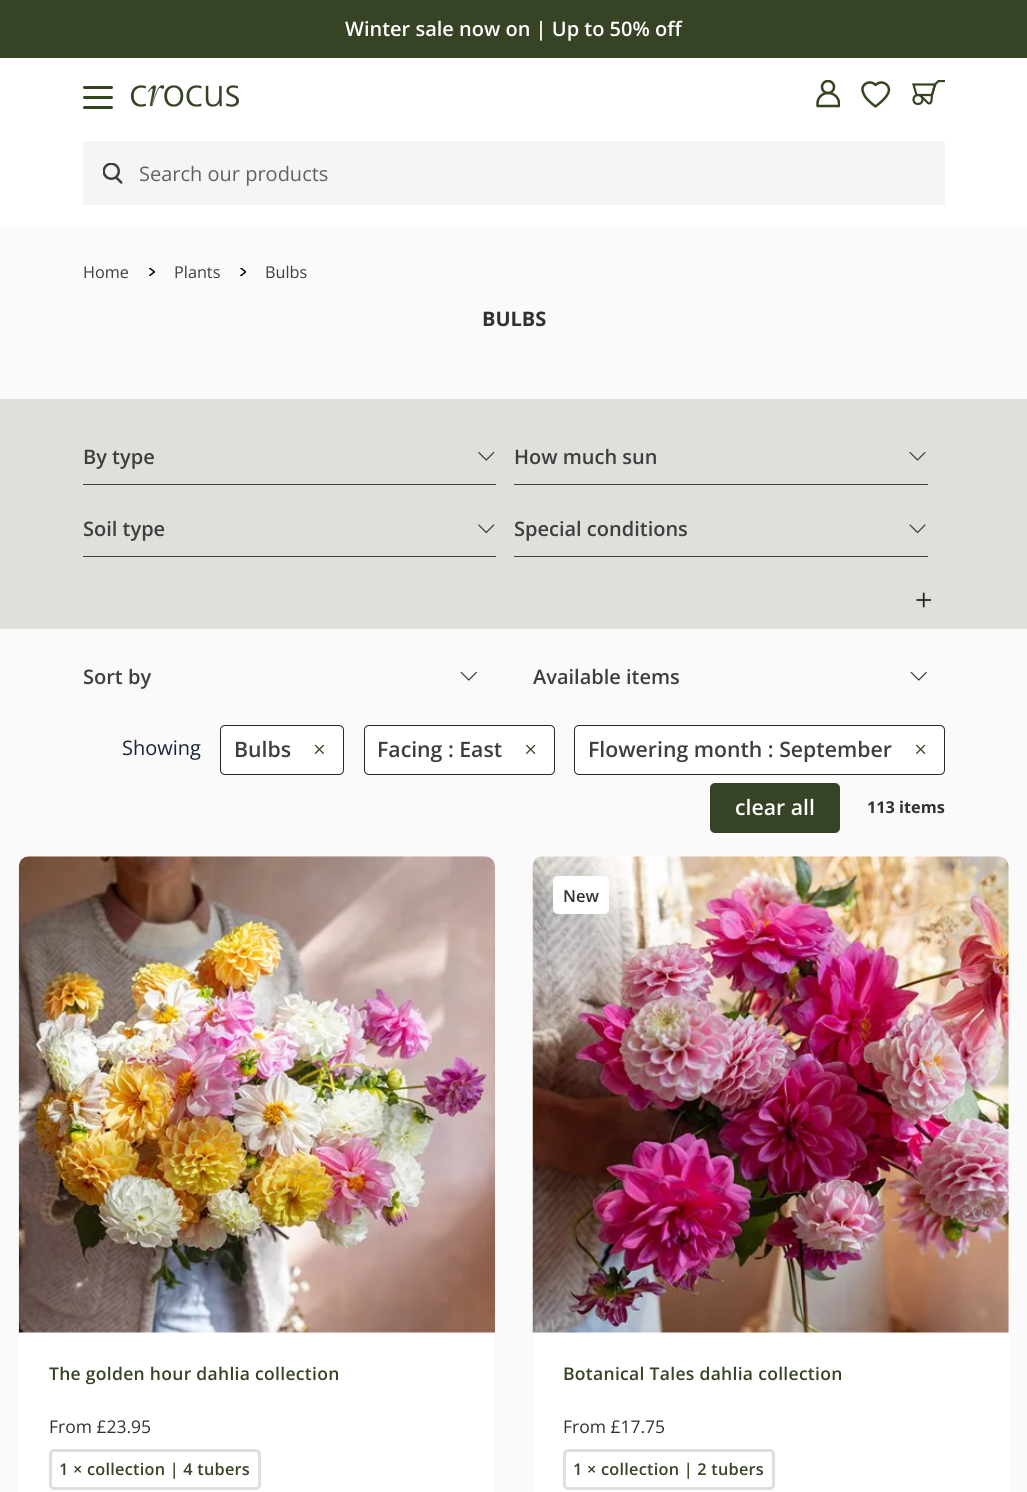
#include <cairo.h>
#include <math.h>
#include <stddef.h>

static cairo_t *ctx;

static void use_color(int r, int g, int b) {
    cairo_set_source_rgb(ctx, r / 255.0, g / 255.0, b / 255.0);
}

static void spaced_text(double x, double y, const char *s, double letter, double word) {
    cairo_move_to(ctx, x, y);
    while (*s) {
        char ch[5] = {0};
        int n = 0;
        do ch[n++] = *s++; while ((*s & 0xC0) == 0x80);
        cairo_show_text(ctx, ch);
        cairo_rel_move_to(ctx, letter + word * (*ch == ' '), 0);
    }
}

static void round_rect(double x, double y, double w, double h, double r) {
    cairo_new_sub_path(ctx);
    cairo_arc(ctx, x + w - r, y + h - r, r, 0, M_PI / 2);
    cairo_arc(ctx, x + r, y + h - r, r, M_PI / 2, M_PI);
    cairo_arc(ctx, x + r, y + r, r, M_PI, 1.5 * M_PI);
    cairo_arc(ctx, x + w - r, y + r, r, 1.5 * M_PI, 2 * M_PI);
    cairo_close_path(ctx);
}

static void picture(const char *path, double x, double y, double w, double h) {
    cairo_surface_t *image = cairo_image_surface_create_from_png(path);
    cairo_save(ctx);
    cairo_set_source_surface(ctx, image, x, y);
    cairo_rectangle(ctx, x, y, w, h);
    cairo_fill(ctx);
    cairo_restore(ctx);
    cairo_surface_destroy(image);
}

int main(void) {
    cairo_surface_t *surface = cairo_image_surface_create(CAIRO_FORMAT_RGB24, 1027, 1492);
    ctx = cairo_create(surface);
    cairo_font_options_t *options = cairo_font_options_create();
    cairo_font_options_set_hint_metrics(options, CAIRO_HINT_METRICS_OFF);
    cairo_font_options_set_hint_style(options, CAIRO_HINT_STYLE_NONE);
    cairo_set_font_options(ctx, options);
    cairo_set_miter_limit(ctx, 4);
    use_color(250, 250, 250);
    cairo_paint(ctx);
    use_color(255, 255, 255);
    cairo_rectangle(ctx, 0, 58, 1027, 167);
    cairo_fill(ctx);
    use_color(55, 67, 37);
    cairo_rectangle(ctx, 0, 0, 1027, 58);
    cairo_fill(ctx);
    cairo_select_font_face(ctx, "Open Sans SemiBold", CAIRO_FONT_SLANT_NORMAL, CAIRO_FONT_WEIGHT_NORMAL);
    cairo_set_font_size(ctx, 20);
    use_color(255, 255, 255);
    cairo_move_to(ctx, 345, 36);
    cairo_show_text(ctx, "Winter sale now on | Up to 50% off");
    use_color(52, 68, 33);
    round_rect(83, 86, 30, 3, 1.5);
    cairo_fill(ctx);
    round_rect(83, 96, 30, 3, 1.5);
    cairo_fill(ctx);
    round_rect(83, 106, 30, 3, 1.5);
    cairo_fill(ctx);
    picture("img1.png", 130, 85, 109, 22);
    cairo_save(ctx);
    cairo_rectangle(ctx, 816, 80, 24, 28);
    cairo_clip(ctx);
    cairo_new_path(ctx);
    cairo_move_to(ctx, 828, 93);
    cairo_curve_to(ctx, 834, 93, 839, 97.5, 839, 103.5);
    cairo_line_to(ctx, 839, 106);
    cairo_line_to(ctx, 817.5, 106);
    cairo_line_to(ctx, 817.5, 103.5);
    cairo_curve_to(ctx, 817.5, 97.5, 822.5, 93, 828, 93);
    cairo_close_path(ctx);
    use_color(53, 69, 32);
    cairo_set_line_width(ctx, 2.5);
    cairo_set_line_cap(ctx, CAIRO_LINE_CAP_ROUND);
    cairo_set_line_join(ctx, CAIRO_LINE_JOIN_ROUND);
    cairo_stroke(ctx);
    cairo_arc(ctx, 828, 87, 6, 0, 2 * M_PI);
    cairo_set_line_cap(ctx, CAIRO_LINE_CAP_BUTT);
    cairo_set_line_join(ctx, CAIRO_LINE_JOIN_MITER);
    cairo_stroke(ctx);
    cairo_restore(ctx);
    cairo_new_path(ctx);
    cairo_move_to(ctx, 886.5, 84.5);
    cairo_curve_to(ctx, 883, 81.5, 878.5, 82, 875.5, 85);
    cairo_curve_to(ctx, 870, 79, 860, 84.5, 863, 92);
    cairo_curve_to(ctx, 864.5, 98, 871, 103, 875.5, 106.5);
    cairo_curve_to(ctx, 880.5, 102.5, 894.5, 92, 886.5, 84.5);
    cairo_close_path(ctx);
    use_color(53, 69, 32);
    cairo_set_line_width(ctx, 2.5);
    cairo_set_line_cap(ctx, CAIRO_LINE_CAP_ROUND);
    cairo_set_line_join(ctx, CAIRO_LINE_JOIN_ROUND);
    cairo_stroke(ctx);
    cairo_new_path(ctx);
    cairo_move_to(ctx, 932, 95);
    cairo_line_to(ctx, 916.5, 95);
    cairo_line_to(ctx, 913.5, 84.5);
    cairo_line_to(ctx, 935, 84.5);
    cairo_close_path(ctx);
    cairo_set_line_width(ctx, 2.2);
    cairo_set_line_cap(ctx, CAIRO_LINE_CAP_BUTT);
    cairo_set_line_join(ctx, CAIRO_LINE_JOIN_MITER);
    cairo_stroke(ctx);
    cairo_save(ctx);
    cairo_rectangle(ctx, 911, 80, 34, 25);
    cairo_clip(ctx);
    cairo_new_path(ctx);
    cairo_move_to(ctx, 920, 95);
    cairo_line_to(ctx, 928, 103);
    cairo_curve_to(ctx, 932.5, 105.5, 931.5, 96.5, 932, 95);
    cairo_line_to(ctx, 935, 84.5);
    cairo_line_to(ctx, 938.5, 81);
    cairo_line_to(ctx, 945, 81);
    cairo_stroke(ctx);
    cairo_restore(ctx);
    cairo_arc(ctx, 918, 99.5, 4.5, 0, 2 * M_PI);
    cairo_stroke(ctx);
    use_color(245, 246, 244);
    cairo_rectangle(ctx, 83, 141, 862, 64);
    cairo_fill(ctx);
    picture("img2.png", 103, 163, 20, 21);
    cairo_select_font_face(ctx, "Open Sans", CAIRO_FONT_SLANT_NORMAL, CAIRO_FONT_WEIGHT_NORMAL);
    use_color(98, 97, 97);
    cairo_move_to(ctx, 139, 181);
    cairo_show_text(ctx, "Search our products");
    cairo_set_font_size(ctx, 16.25);
    use_color(62, 62, 62);
    cairo_move_to(ctx, 83, 278);
    cairo_show_text(ctx, "Home");
    picture("img3.png", 149, 268, 6, 8);
    cairo_move_to(ctx, 174, 278);
    cairo_show_text(ctx, "Plants");
    picture("img4.png", 240, 268, 6, 8);
    cairo_move_to(ctx, 265, 278);
    cairo_show_text(ctx, "Bulbs");
    cairo_select_font_face(ctx, "Open Sans", CAIRO_FONT_SLANT_NORMAL, CAIRO_FONT_WEIGHT_BOLD);
    cairo_set_font_size(ctx, 20);
    use_color(49, 49, 49);
    cairo_move_to(ctx, 482, 326);
    cairo_show_text(ctx, "BULBS");
    use_color(223, 224, 220);
    cairo_rectangle(ctx, 0, 399, 1027, 230);
    cairo_fill(ctx);
    use_color(62, 62, 62);
    cairo_rectangle(ctx, 83, 484, 413, 1);
    cairo_fill(ctx);
    cairo_select_font_face(ctx, "Open Sans SemiBold", CAIRO_FONT_SLANT_NORMAL, CAIRO_FONT_WEIGHT_NORMAL);
    cairo_move_to(ctx, 83, 464);
    cairo_show_text(ctx, "By type");
    picture("img5.png", 478, 451, 17, 10);
    cairo_rectangle(ctx, 514, 484, 414, 1);
    cairo_fill(ctx);
    cairo_move_to(ctx, 514, 464);
    cairo_show_text(ctx, "How much sun");
    picture("img6.png", 909, 452, 17, 9);
    cairo_rectangle(ctx, 83, 556, 413, 1);
    cairo_fill(ctx);
    cairo_move_to(ctx, 83, 536);
    cairo_show_text(ctx, "Soil type");
    picture("img7.png", 478, 524, 17, 10);
    cairo_rectangle(ctx, 514, 556, 414, 1);
    cairo_fill(ctx);
    cairo_move_to(ctx, 514, 536);
    cairo_show_text(ctx, "Special conditions");
    picture("img8.png", 909, 524, 17, 10);
    picture("img9.png", 916, 592, 16, 16);
    cairo_move_to(ctx, 83, 684);
    cairo_show_text(ctx, "Sort by");
    picture("img10.png", 460, 671, 17, 10);
    cairo_move_to(ctx, 533, 684);
    cairo_show_text(ctx, "Available items");
    picture("img10.png", 910, 671, 17, 10);
    cairo_select_font_face(ctx, "Open Sans", CAIRO_FONT_SLANT_NORMAL, CAIRO_FONT_WEIGHT_NORMAL);
    use_color(27, 36, 55);
    cairo_move_to(ctx, 122, 755);
    cairo_show_text(ctx, "Showing");
    use_color(255, 255, 255);
    round_rect(220.5, 725.5, 123, 49, 4.5);
    cairo_fill_preserve(ctx);
    use_color(40, 40, 40);
    cairo_set_line_width(ctx, 1);
    cairo_stroke(ctx);
    cairo_select_font_face(ctx, "Open Sans SemiBold", CAIRO_FONT_SLANT_NORMAL, CAIRO_FONT_WEIGHT_NORMAL);
    cairo_set_font_size(ctx, 21.25);
    use_color(62, 62, 62);
    cairo_move_to(ctx, 234, 757);
    cairo_show_text(ctx, "Bulbs");
    picture("img11.png", 314, 744, 10, 10);
    use_color(255, 255, 255);
    round_rect(364.5, 725.5, 190, 49, 4.5);
    cairo_fill_preserve(ctx);
    use_color(40, 40, 40);
    cairo_stroke(ctx);
    use_color(62, 62, 62);
    cairo_move_to(ctx, 377, 757);
    cairo_show_text(ctx, "Facing : East");
    picture("img12.png", 526, 744, 10, 10);
    use_color(255, 255, 255);
    round_rect(574.5, 725.5, 370, 49, 4.5);
    cairo_fill_preserve(ctx);
    use_color(40, 40, 40);
    cairo_stroke(ctx);
    use_color(62, 62, 62);
    cairo_move_to(ctx, 588, 757);
    cairo_show_text(ctx, "Flowering month : September");
    picture("img12.png", 916, 744, 10, 10);
    use_color(55, 67, 37);
    round_rect(710, 783, 130, 50, 5);
    cairo_fill(ctx);
    use_color(255, 255, 255);
    cairo_move_to(ctx, 735, 815);
    cairo_show_text(ctx, "clear all");
    cairo_select_font_face(ctx, "Open Sans", CAIRO_FONT_SLANT_NORMAL, CAIRO_FONT_WEIGHT_BOLD);
    cairo_set_font_size(ctx, 16.25);
    use_color(49, 49, 49);
    cairo_move_to(ctx, 867, 813);
    cairo_show_text(ctx, "113 items");
    use_color(255, 255, 255);
    round_rect(19, 856, 476, 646, 10);
    cairo_fill(ctx);
    picture("img13.png", 18, 856, 477, 477);
    cairo_select_font_face(ctx, "Open Sans SemiBold", CAIRO_FONT_SLANT_NORMAL, CAIRO_FONT_WEIGHT_NORMAL);
    cairo_set_font_size(ctx, 17.5);
    use_color(55, 67, 37);
    spaced_text(49, 1380, "The golden hour dahlia collection", 0.3, 0);
    cairo_select_font_face(ctx, "Open Sans", CAIRO_FONT_SLANT_NORMAL, CAIRO_FONT_WEIGHT_NORMAL);
    use_color(49, 49, 49);
    cairo_move_to(ctx, 49, 1433);
    cairo_show_text(ctx, "From £23.95");
    round_rect(50.5, 1450.5, 209, 38, 3.5);
    use_color(223, 224, 220);
    cairo_set_line_width(ctx, 3);
    cairo_stroke(ctx);
    cairo_select_font_face(ctx, "Open Sans SemiBold", CAIRO_FONT_SLANT_NORMAL, CAIRO_FONT_WEIGHT_NORMAL);
    cairo_set_font_size(ctx, 16.25);
    use_color(55, 67, 37);
    spaced_text(59, 1475, "1 × collection | 4 tubers", 0.25, 0);
    use_color(255, 255, 255);
    round_rect(533, 856, 476, 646, 10);
    cairo_fill(ctx);
    picture("img14.png", 532, 856, 477, 477);
    round_rect(553, 876, 56, 38, 5);
    cairo_fill(ctx);
    cairo_set_font_size(ctx, 16.5);
    use_color(49, 49, 49);
    cairo_move_to(ctx, 563, 902);
    cairo_show_text(ctx, "New");
    cairo_set_font_size(ctx, 17.5);
    use_color(55, 67, 37);
    spaced_text(563, 1380, "Botanical Tales dahlia collection", 0.3, 0);
    cairo_select_font_face(ctx, "Open Sans", CAIRO_FONT_SLANT_NORMAL, CAIRO_FONT_WEIGHT_NORMAL);
    use_color(49, 49, 49);
    cairo_move_to(ctx, 563, 1433);
    cairo_show_text(ctx, "From £17.75");
    round_rect(564.5, 1450.5, 209, 38, 3.5);
    use_color(223, 224, 220);
    cairo_stroke(ctx);
    cairo_select_font_face(ctx, "Open Sans SemiBold", CAIRO_FONT_SLANT_NORMAL, CAIRO_FONT_WEIGHT_NORMAL);
    cairo_set_font_size(ctx, 16.25);
    use_color(55, 67, 37);
    spaced_text(573, 1475, "1 × collection | 2 tubers", 0.25, 0);
    cairo_surface_write_to_png(surface, "result.png");
    cairo_font_options_destroy(options);
    cairo_destroy(ctx);
    cairo_surface_destroy(surface);
    return 0;
}
